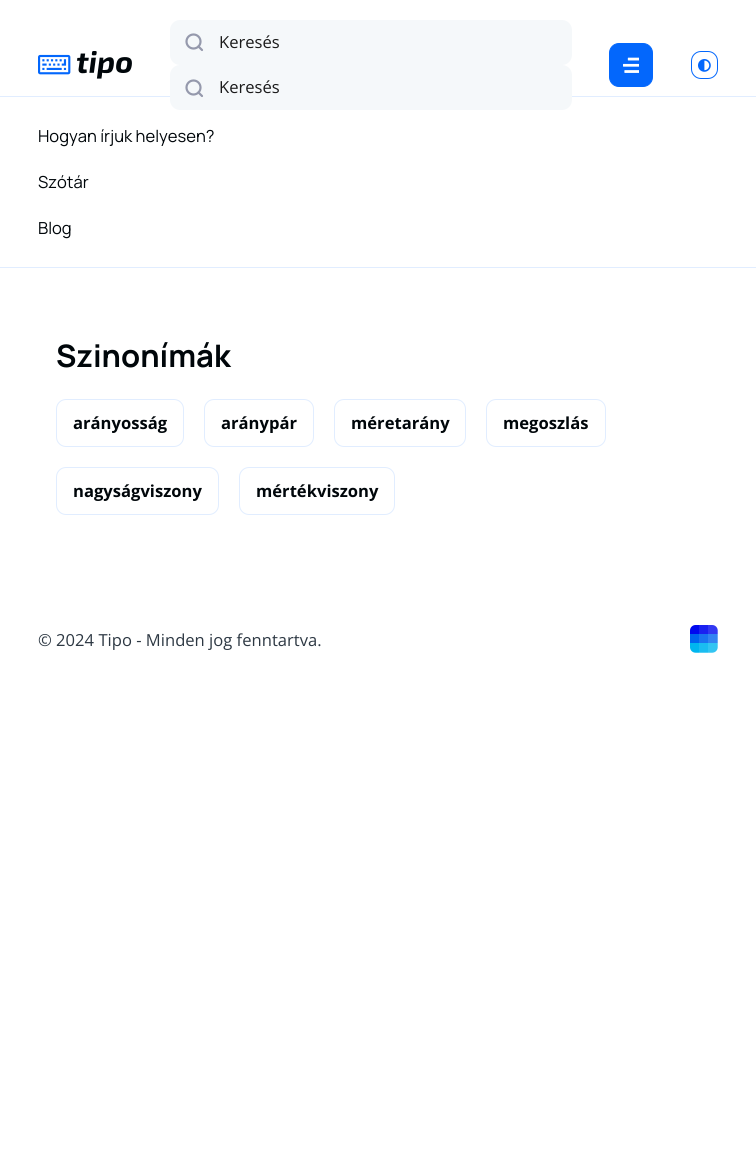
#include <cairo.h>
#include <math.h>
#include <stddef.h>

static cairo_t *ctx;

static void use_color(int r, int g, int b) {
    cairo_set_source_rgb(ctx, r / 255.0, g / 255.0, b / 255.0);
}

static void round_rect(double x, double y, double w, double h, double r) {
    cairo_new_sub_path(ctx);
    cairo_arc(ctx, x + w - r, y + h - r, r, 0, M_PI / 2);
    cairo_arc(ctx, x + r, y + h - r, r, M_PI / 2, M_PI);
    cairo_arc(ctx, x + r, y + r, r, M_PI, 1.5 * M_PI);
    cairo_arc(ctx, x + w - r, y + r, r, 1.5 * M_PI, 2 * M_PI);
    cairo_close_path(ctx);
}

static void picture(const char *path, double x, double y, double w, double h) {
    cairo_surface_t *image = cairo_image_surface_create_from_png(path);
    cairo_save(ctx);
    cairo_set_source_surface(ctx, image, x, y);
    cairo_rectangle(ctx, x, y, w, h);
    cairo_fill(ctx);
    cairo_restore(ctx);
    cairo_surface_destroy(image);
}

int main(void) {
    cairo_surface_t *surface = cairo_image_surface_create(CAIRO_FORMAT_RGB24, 756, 1149);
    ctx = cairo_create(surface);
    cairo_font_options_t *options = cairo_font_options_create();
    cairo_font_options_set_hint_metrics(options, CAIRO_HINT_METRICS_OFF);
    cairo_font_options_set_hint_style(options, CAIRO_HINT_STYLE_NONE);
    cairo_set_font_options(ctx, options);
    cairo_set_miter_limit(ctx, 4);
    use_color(255, 255, 255);
    cairo_paint(ctx);
    picture("img1.png", 38, 51, 94, 28);
    use_color(245, 248, 250);
    round_rect(170, 20, 402, 45, 10);
    cairo_fill(ctx);
    cairo_arc(ctx, 193.5, 41.5, 7, 0, 2 * M_PI);
    use_color(149, 153, 172);
    cairo_set_line_width(ctx, 2.2);
    cairo_stroke(ctx);
    cairo_new_path(ctx);
    cairo_move_to(ctx, 202, 50);
    cairo_line_to(ctx, 198.5, 46.5);
    cairo_set_line_cap(ctx, CAIRO_LINE_CAP_ROUND);
    cairo_set_line_join(ctx, CAIRO_LINE_JOIN_ROUND);
    cairo_stroke(ctx);
    cairo_select_font_face(ctx, "Open Sans", CAIRO_FONT_SLANT_NORMAL, CAIRO_FONT_WEIGHT_NORMAL);
    cairo_set_font_size(ctx, 16.6);
    use_color(26, 26, 26);
    cairo_move_to(ctx, 219, 48);
    cairo_show_text(ctx, "Keresés");
    use_color(225, 237, 255);
    cairo_rectangle(ctx, 0, 96, 756, 1);
    cairo_fill(ctx);
    use_color(245, 248, 250);
    round_rect(170, 65, 402, 45, 10);
    cairo_fill(ctx);
    cairo_arc(ctx, 193.5, 87.5, 7, 0, 2 * M_PI);
    use_color(149, 153, 172);
    cairo_set_line_cap(ctx, CAIRO_LINE_CAP_BUTT);
    cairo_set_line_join(ctx, CAIRO_LINE_JOIN_MITER);
    cairo_stroke(ctx);
    cairo_new_path(ctx);
    cairo_move_to(ctx, 202, 96);
    cairo_line_to(ctx, 198.5, 92.5);
    cairo_set_line_cap(ctx, CAIRO_LINE_CAP_ROUND);
    cairo_set_line_join(ctx, CAIRO_LINE_JOIN_ROUND);
    cairo_stroke(ctx);
    use_color(26, 26, 26);
    cairo_move_to(ctx, 219, 93);
    cairo_show_text(ctx, "Keresés");
    round_rect(691.5, 51.5, 26, 27, 9.5);
    use_color(3, 103, 252);
    cairo_set_line_width(ctx, 1);
    cairo_set_line_cap(ctx, CAIRO_LINE_CAP_BUTT);
    cairo_set_line_join(ctx, CAIRO_LINE_JOIN_MITER);
    cairo_stroke(ctx);
    picture("img2.png", 698, 59, 13, 13);
    round_rect(609.5, 43.5, 43, 43, 9.5);
    cairo_fill_preserve(ctx);
    cairo_stroke(ctx);
    picture("img3.png", 623, 57, 16, 16);
    use_color(225, 237, 255);
    cairo_rectangle(ctx, 0, 267, 756, 1);
    cairo_fill(ctx);
    cairo_select_font_face(ctx, "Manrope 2 ExtraLight", CAIRO_FONT_SLANT_NORMAL, CAIRO_FONT_WEIGHT_NORMAL);
    use_color(0, 6, 10);
    cairo_move_to(ctx, 38, 142);
    cairo_show_text(ctx, "Hogyan írjuk helyesen?");
    cairo_move_to(ctx, 38, 188);
    cairo_show_text(ctx, "Szótár");
    cairo_move_to(ctx, 38, 234);
    cairo_show_text(ctx, "Blog");
    cairo_select_font_face(ctx, "Manrope ExtraLight", CAIRO_FONT_SLANT_NORMAL, CAIRO_FONT_WEIGHT_NORMAL);
    cairo_set_font_size(ctx, 31);
    cairo_move_to(ctx, 56, 367);
    cairo_show_text(ctx, "Szinonímák");
    round_rect(56.5, 399.5, 127, 47, 9.5);
    use_color(225, 237, 255);
    cairo_stroke(ctx);
    cairo_select_font_face(ctx, "Open Sans", CAIRO_FONT_SLANT_NORMAL, CAIRO_FONT_WEIGHT_BOLD);
    cairo_set_font_size(ctx, 16.6);
    use_color(0, 6, 10);
    cairo_move_to(ctx, 73, 429);
    cairo_show_text(ctx, "arányosság");
    round_rect(204.5, 399.5, 109, 47, 9.5);
    use_color(225, 237, 255);
    cairo_stroke(ctx);
    use_color(0, 6, 10);
    cairo_move_to(ctx, 221, 429);
    cairo_show_text(ctx, "aránypár");
    round_rect(334.5, 399.5, 131, 47, 9.5);
    use_color(225, 237, 255);
    cairo_stroke(ctx);
    use_color(0, 6, 10);
    cairo_move_to(ctx, 351, 429);
    cairo_show_text(ctx, "méretarány");
    round_rect(486.5, 399.5, 119, 47, 9.5);
    use_color(225, 237, 255);
    cairo_stroke(ctx);
    use_color(0, 6, 10);
    cairo_move_to(ctx, 503, 429);
    cairo_show_text(ctx, "megoszlás");
    round_rect(56.5, 467.5, 162, 47, 9.5);
    use_color(225, 237, 255);
    cairo_stroke(ctx);
    use_color(0, 6, 10);
    cairo_move_to(ctx, 73, 497);
    cairo_show_text(ctx, "nagyságviszony");
    round_rect(239.5, 467.5, 155, 47, 9.5);
    use_color(225, 237, 255);
    cairo_stroke(ctx);
    use_color(0, 6, 10);
    cairo_move_to(ctx, 256, 497);
    cairo_show_text(ctx, "mértékviszony");
    cairo_select_font_face(ctx, "Open Sans", CAIRO_FONT_SLANT_NORMAL, CAIRO_FONT_WEIGHT_NORMAL);
    use_color(45, 56, 67);
    cairo_move_to(ctx, 38, 646);
    cairo_show_text(ctx, "© 2024 Tipo - Minden jog fenntartva.");
    picture("img4.png", 690, 625, 28, 28);
    cairo_surface_write_to_png(surface, "result.png");
    cairo_font_options_destroy(options);
    cairo_destroy(ctx);
    cairo_surface_destroy(surface);
    return 0;
}
